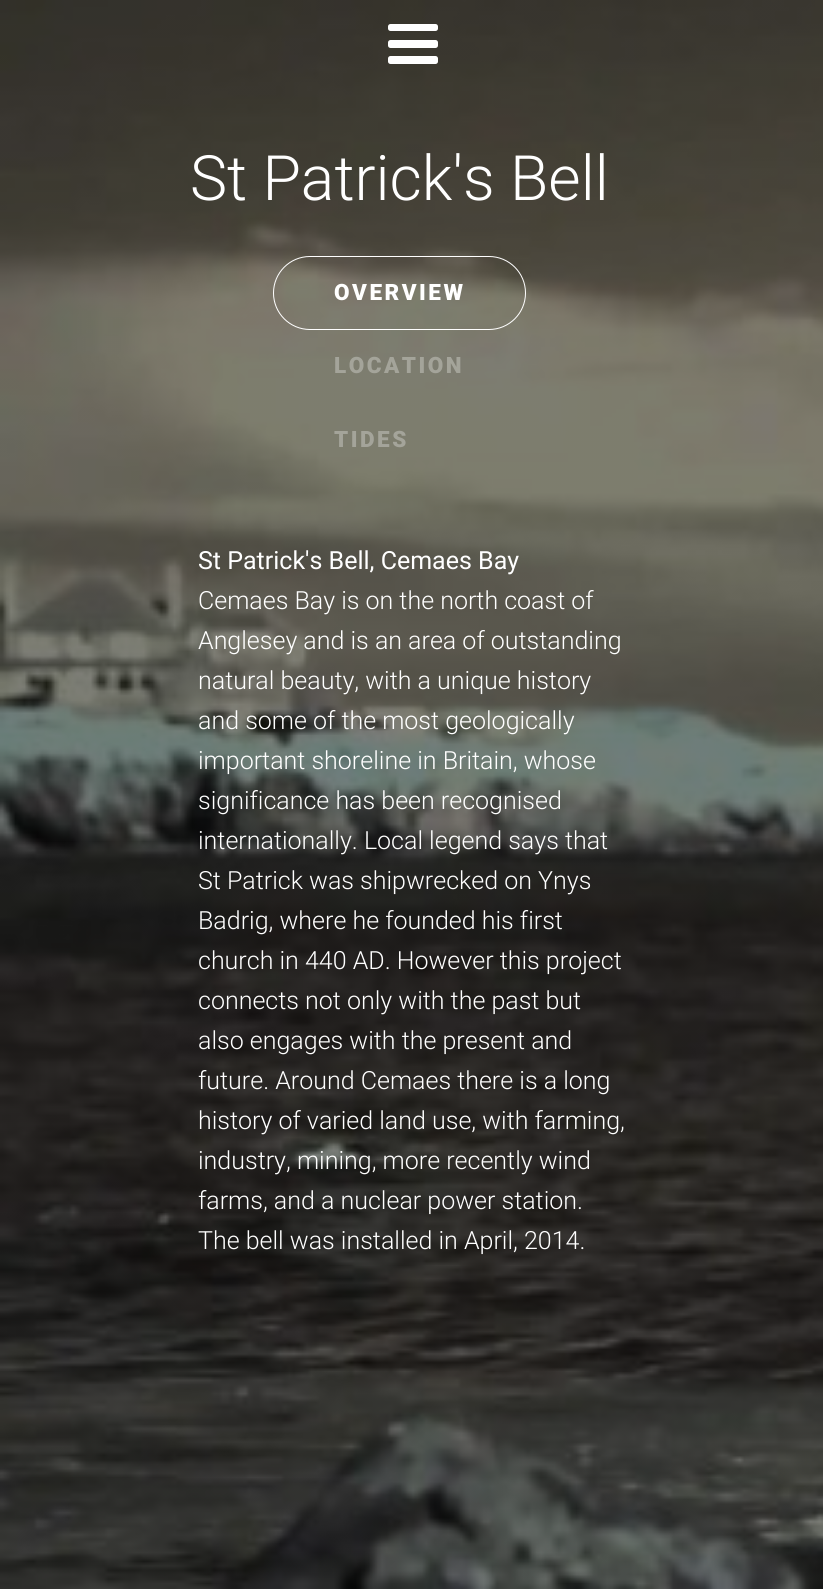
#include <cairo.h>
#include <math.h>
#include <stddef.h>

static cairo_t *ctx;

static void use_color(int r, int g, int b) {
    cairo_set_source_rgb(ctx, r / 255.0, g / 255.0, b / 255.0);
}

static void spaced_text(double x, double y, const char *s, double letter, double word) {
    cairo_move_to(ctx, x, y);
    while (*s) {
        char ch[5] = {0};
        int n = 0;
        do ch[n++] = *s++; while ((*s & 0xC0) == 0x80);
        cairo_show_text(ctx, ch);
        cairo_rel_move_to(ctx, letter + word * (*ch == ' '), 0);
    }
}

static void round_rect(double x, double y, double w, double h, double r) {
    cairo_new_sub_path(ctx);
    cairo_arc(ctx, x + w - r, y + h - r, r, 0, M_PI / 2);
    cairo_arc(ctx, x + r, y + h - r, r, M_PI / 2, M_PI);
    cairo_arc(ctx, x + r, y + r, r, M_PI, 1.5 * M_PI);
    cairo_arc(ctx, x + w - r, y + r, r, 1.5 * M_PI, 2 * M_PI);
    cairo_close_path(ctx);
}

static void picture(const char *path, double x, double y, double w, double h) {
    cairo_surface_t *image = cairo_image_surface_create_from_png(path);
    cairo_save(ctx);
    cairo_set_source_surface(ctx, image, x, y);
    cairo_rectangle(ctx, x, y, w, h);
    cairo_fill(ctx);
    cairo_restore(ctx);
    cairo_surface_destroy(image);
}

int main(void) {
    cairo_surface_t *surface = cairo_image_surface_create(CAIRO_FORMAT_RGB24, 823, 1589);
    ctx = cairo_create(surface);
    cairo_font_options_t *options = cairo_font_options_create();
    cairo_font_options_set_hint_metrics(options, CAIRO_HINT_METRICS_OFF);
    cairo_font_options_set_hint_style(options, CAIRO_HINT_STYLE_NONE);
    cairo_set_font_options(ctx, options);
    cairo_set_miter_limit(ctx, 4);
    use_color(255, 255, 255);
    cairo_paint(ctx);
    picture("img1.png", 0, 0, 823, 1589);
    use_color(255, 255, 255);
    round_rect(388, 24, 50, 7, 2.5);
    cairo_fill(ctx);
    round_rect(388, 40, 50, 8, 2.5);
    cairo_fill(ctx);
    round_rect(388, 56, 50, 8, 2.5);
    cairo_fill(ctx);
    cairo_select_font_face(ctx, "Roboto Light", CAIRO_FONT_SLANT_NORMAL, CAIRO_FONT_WEIGHT_NORMAL);
    cairo_set_font_size(ctx, 62.5);
    cairo_move_to(ctx, 190, 200);
    cairo_show_text(ctx, "St Patrick's Bell");
    round_rect(273.5, 256.5, 252, 73, 36.5);
    cairo_set_line_width(ctx, 1);
    cairo_stroke(ctx);
    cairo_select_font_face(ctx, "Roboto Black", CAIRO_FONT_SLANT_NORMAL, CAIRO_FONT_WEIGHT_NORMAL);
    cairo_set_font_size(ctx, 22.5);
    spaced_text(334, 300, "OVERVIEW", 2.5, 0);
    use_color(164, 164, 154);
    spaced_text(334, 373, "LOCATION", 2.5, 0);
    spaced_text(334, 447, "TIDES", 2.5, 0);
    cairo_select_font_face(ctx, "Roboto", CAIRO_FONT_SLANT_NORMAL, CAIRO_FONT_WEIGHT_NORMAL);
    cairo_set_font_size(ctx, 25);
    use_color(255, 255, 255);
    cairo_move_to(ctx, 198, 569);
    cairo_show_text(ctx, "St Patrick's Bell, Cemaes Bay");
    cairo_select_font_face(ctx, "Roboto Light", CAIRO_FONT_SLANT_NORMAL, CAIRO_FONT_WEIGHT_NORMAL);
    cairo_move_to(ctx, 198, 609);
    cairo_show_text(ctx, "Cemaes Bay is on the north coast of");
    cairo_move_to(ctx, 198, 649);
    cairo_show_text(ctx, "Anglesey and is an area of outstanding");
    cairo_move_to(ctx, 198, 689);
    cairo_show_text(ctx, "natural beauty, with a unique history");
    cairo_move_to(ctx, 198, 729);
    cairo_show_text(ctx, "and some of the most geologically");
    cairo_move_to(ctx, 198, 769);
    cairo_show_text(ctx, "important shoreline in Britain, whose");
    cairo_move_to(ctx, 198, 809);
    cairo_show_text(ctx, "significance has been recognised");
    cairo_move_to(ctx, 198, 849);
    cairo_show_text(ctx, "internationally. Local legend says that");
    cairo_move_to(ctx, 198, 889);
    cairo_show_text(ctx, "St Patrick was shipwrecked on Ynys");
    cairo_move_to(ctx, 198, 929);
    cairo_show_text(ctx, "Badrig, where he founded his first");
    cairo_move_to(ctx, 198, 969);
    cairo_show_text(ctx, "church in 440 AD. However this project");
    cairo_move_to(ctx, 198, 1009);
    cairo_show_text(ctx, "connects not only with the past but");
    cairo_move_to(ctx, 198, 1049);
    cairo_show_text(ctx, "also engages with the present and");
    cairo_move_to(ctx, 198, 1089);
    cairo_show_text(ctx, "future. Around Cemaes there is a long");
    cairo_move_to(ctx, 198, 1129);
    cairo_show_text(ctx, "history of varied land use, with farming,");
    cairo_move_to(ctx, 198, 1169);
    cairo_show_text(ctx, "industry, mining, more recently wind");
    cairo_move_to(ctx, 198, 1209);
    cairo_show_text(ctx, "farms, and a nuclear power station.");
    cairo_move_to(ctx, 198, 1249);
    cairo_show_text(ctx, "The bell was installed in April, 2014.");
    cairo_surface_write_to_png(surface, "result.png");
    cairo_font_options_destroy(options);
    cairo_destroy(ctx);
    cairo_surface_destroy(surface);
    return 0;
}
